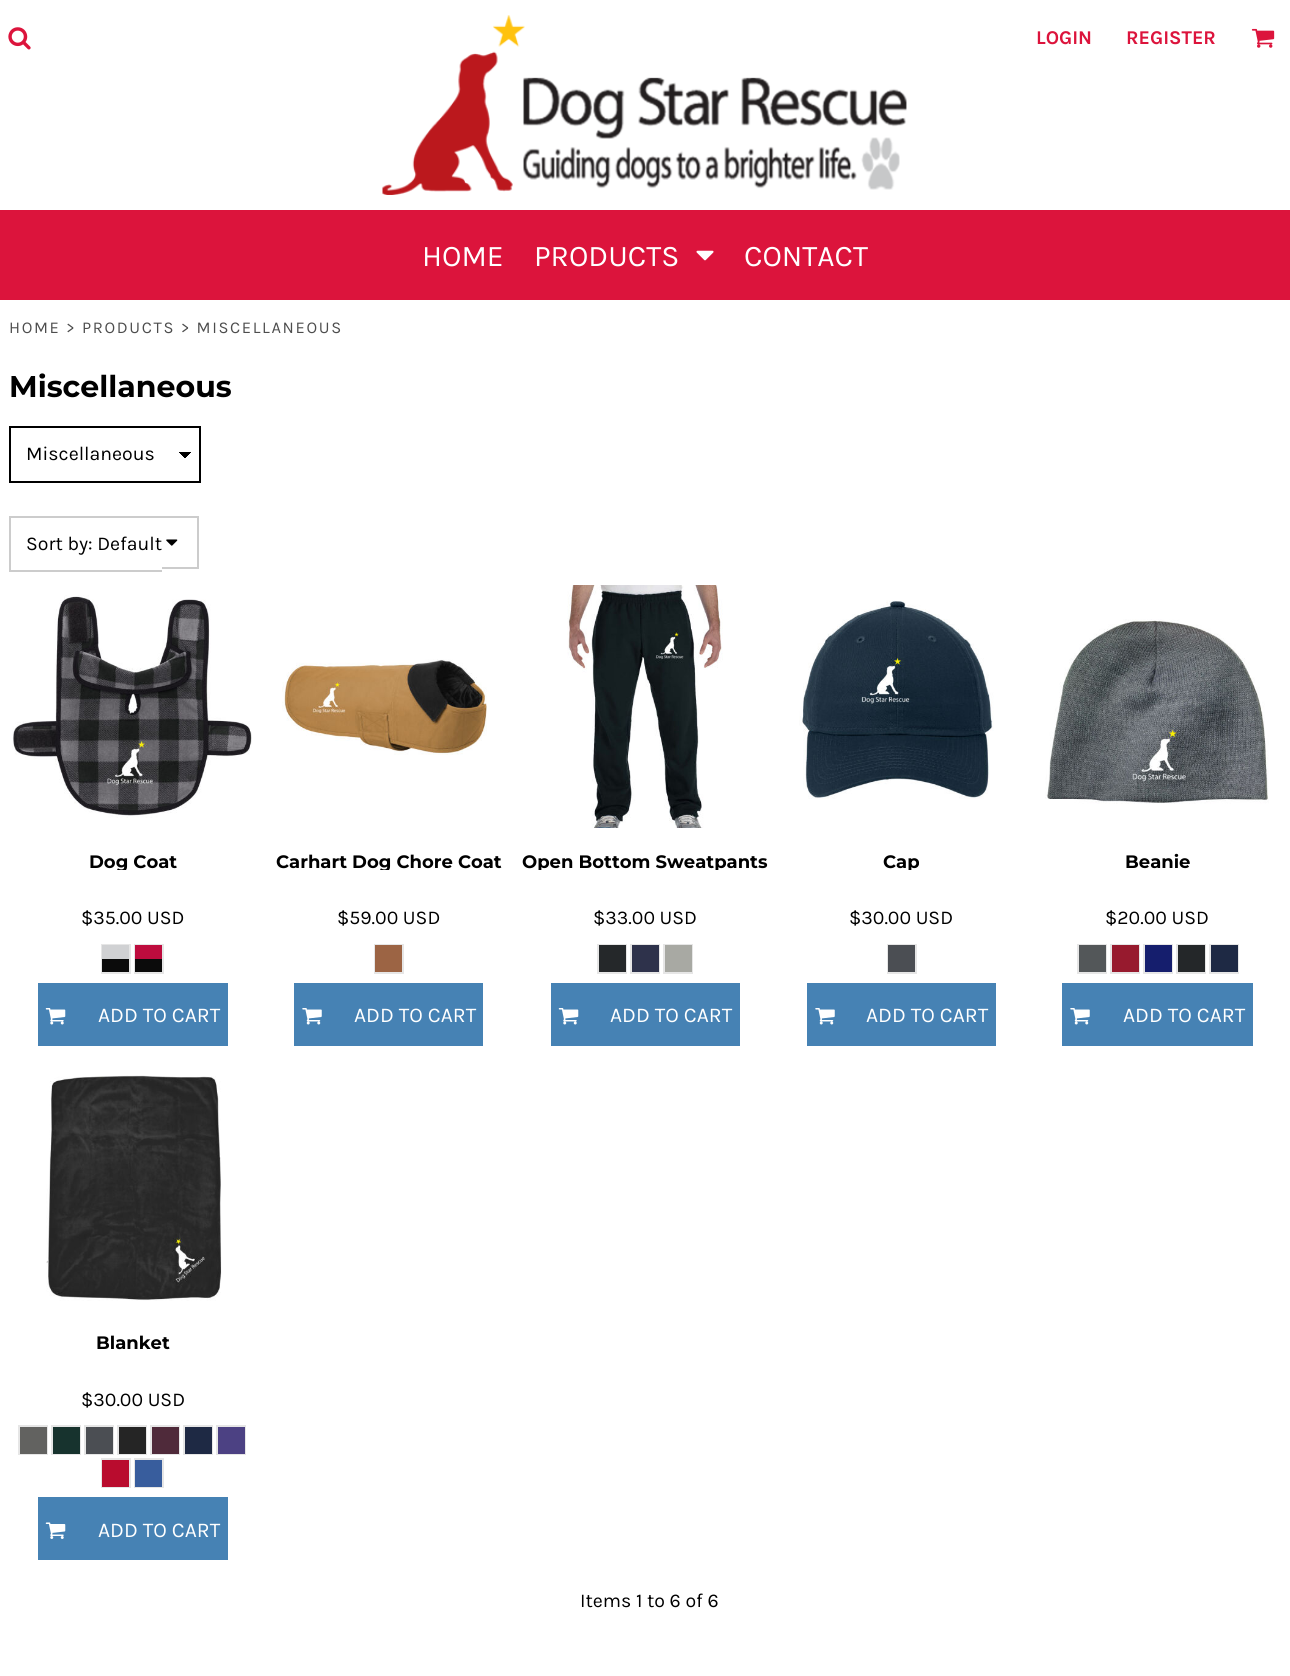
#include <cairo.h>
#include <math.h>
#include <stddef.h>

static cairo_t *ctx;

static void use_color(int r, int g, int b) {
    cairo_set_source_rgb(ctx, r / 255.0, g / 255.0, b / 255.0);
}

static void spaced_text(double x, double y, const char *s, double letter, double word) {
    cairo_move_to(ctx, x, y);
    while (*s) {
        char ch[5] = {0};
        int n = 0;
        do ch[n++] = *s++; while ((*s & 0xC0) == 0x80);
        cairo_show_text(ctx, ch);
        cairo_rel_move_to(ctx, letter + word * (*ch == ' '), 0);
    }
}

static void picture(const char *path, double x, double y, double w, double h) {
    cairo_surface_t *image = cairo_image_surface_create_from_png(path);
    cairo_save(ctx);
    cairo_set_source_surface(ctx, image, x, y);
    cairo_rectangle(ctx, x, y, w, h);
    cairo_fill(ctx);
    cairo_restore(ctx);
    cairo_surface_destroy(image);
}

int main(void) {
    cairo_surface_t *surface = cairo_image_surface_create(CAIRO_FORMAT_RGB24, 1290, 1676);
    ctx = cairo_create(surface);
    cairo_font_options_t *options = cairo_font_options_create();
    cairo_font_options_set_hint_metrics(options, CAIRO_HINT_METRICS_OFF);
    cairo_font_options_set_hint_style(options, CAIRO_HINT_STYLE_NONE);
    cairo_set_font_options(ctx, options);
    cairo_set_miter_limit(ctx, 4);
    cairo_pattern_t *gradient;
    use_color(255, 255, 255);
    cairo_paint(ctx);
    picture("img1.png", 8, 27, 23, 23);
    picture("img2.png", 382, 15, 525, 180);
    cairo_select_font_face(ctx, "Karla", CAIRO_FONT_SLANT_NORMAL, CAIRO_FONT_WEIGHT_BOLD);
    cairo_set_font_size(ctx, 19.5);
    use_color(220, 20, 60);
    cairo_move_to(ctx, 1036, 44);
    cairo_show_text(ctx, "LOGIN");
    cairo_move_to(ctx, 1126, 44);
    cairo_show_text(ctx, "REGISTER");
    picture("img3.png", 1251, 28, 24, 20);
    cairo_rectangle(ctx, 0, 210, 1290, 90);
    cairo_fill(ctx);
    cairo_select_font_face(ctx, "Karla", CAIRO_FONT_SLANT_NORMAL, CAIRO_FONT_WEIGHT_NORMAL);
    cairo_set_font_size(ctx, 30);
    use_color(255, 255, 255);
    cairo_move_to(ctx, 422, 266);
    cairo_show_text(ctx, "HOME");
    cairo_move_to(ctx, 534, 266);
    cairo_show_text(ctx, "PRODUCTS");
    picture("img4.png", 696, 250, 18, 11);
    cairo_move_to(ctx, 744, 266);
    cairo_show_text(ctx, "CONTACT");
    cairo_set_font_size(ctx, 16.5);
    use_color(77, 77, 77);
    spaced_text(9, 333, "HOME > PRODUCTS > MISCELLANEOUS", 1.65, 0);
    cairo_select_font_face(ctx, "Montserrat Thin", CAIRO_FONT_SLANT_NORMAL, CAIRO_FONT_WEIGHT_NORMAL);
    cairo_set_font_size(ctx, 30);
    use_color(0, 0, 0);
    cairo_move_to(ctx, 9, 397);
    cairo_show_text(ctx, "Miscellaneous");
    gradient = cairo_pattern_create_linear(185, 451, 192, 458);
    cairo_pattern_add_color_stop_rgba(gradient, 0.5, 0, 0, 0, 1);
    cairo_pattern_add_color_stop_rgba(gradient, 0.5, 1, 1, 1, 1);
    cairo_set_source(ctx, gradient);
    cairo_pattern_destroy(gradient);
    cairo_rectangle(ctx, 185, 452, 7, 6);
    cairo_fill(ctx);
    gradient = cairo_pattern_create_linear(177, 458, 185, 451);
    cairo_pattern_add_color_stop_rgba(gradient, 0.5, 1, 1, 1, 1);
    cairo_pattern_add_color_stop_rgba(gradient, 0.5, 0, 0, 0, 1);
    cairo_set_source(ctx, gradient);
    cairo_pattern_destroy(gradient);
    cairo_rectangle(ctx, 177, 452, 8, 6);
    cairo_fill(ctx);
    cairo_rectangle(ctx, 10, 427, 190, 55);
    use_color(0, 0, 0);
    cairo_stroke(ctx);
    cairo_select_font_face(ctx, "Karla", CAIRO_FONT_SLANT_NORMAL, CAIRO_FONT_WEIGHT_NORMAL);
    cairo_set_font_size(ctx, 19.5);
    cairo_move_to(ctx, 26, 460);
    cairo_show_text(ctx, "Miscellaneous");
    use_color(204, 204, 204);
    cairo_rectangle(ctx, 9, 516, 189, 2);
    cairo_fill(ctx);
    cairo_rectangle(ctx, 9, 570, 153, 2);
    cairo_fill(ctx);
    cairo_rectangle(ctx, 9, 516, 2, 56);
    cairo_fill(ctx);
    cairo_rectangle(ctx, 197, 516, 2, 53);
    cairo_fill(ctx);
    cairo_rectangle(ctx, 162, 567, 36, 2);
    cairo_fill(ctx);
    use_color(0, 0, 0);
    cairo_move_to(ctx, 26, 550);
    cairo_show_text(ctx, "Sort by: Default");
    picture("img5.png", 166, 539, 12, 7);
    picture("img6.png", 12, 595, 240, 223);
    cairo_save(ctx);
    cairo_rectangle(ctx, 9, 852, 248, 18);
    cairo_clip(ctx);
    cairo_select_font_face(ctx, "Montserrat Thin", CAIRO_FONT_SLANT_NORMAL, CAIRO_FONT_WEIGHT_NORMAL);
    cairo_set_font_size(ctx, 18);
    cairo_move_to(ctx, 89, 868);
    cairo_show_text(ctx, "Dog Coat");
    cairo_restore(ctx);
    cairo_move_to(ctx, 81, 924);
    cairo_show_text(ctx, "$35.00 USD");
    cairo_rectangle(ctx, 102, 945, 28, 28);
    use_color(230, 230, 230);
    cairo_stroke(ctx);
    use_color(208, 209, 211);
    cairo_rectangle(ctx, 102, 945, 27, 14);
    cairo_fill(ctx);
    use_color(11, 11, 11);
    cairo_rectangle(ctx, 102, 959, 27, 13);
    cairo_fill(ctx);
    cairo_rectangle(ctx, 135, 945, 28, 28);
    use_color(230, 230, 230);
    cairo_stroke(ctx);
    use_color(190, 12, 62);
    cairo_rectangle(ctx, 135, 945, 27, 14);
    cairo_fill(ctx);
    use_color(11, 11, 11);
    cairo_rectangle(ctx, 135, 959, 27, 13);
    cairo_fill(ctx);
    use_color(70, 130, 180);
    cairo_rectangle(ctx, 38, 983, 190, 63);
    cairo_fill(ctx);
    picture("img7.png", 45, 1008, 21, 17);
    cairo_set_font_size(ctx, 21);
    use_color(255, 255, 255);
    cairo_move_to(ctx, 98, 1022);
    cairo_show_text(ctx, "ADD TO CART");
    picture("img8.png", 282, 659, 205, 96);
    cairo_save(ctx);
    cairo_rectangle(ctx, 266, 852, 247, 18);
    cairo_clip(ctx);
    cairo_select_font_face(ctx, "Montserrat Thin", CAIRO_FONT_SLANT_NORMAL, CAIRO_FONT_WEIGHT_NORMAL);
    cairo_set_font_size(ctx, 18);
    use_color(0, 0, 0);
    cairo_move_to(ctx, 276, 868);
    cairo_show_text(ctx, "Carhart Dog Chore Coat");
    cairo_restore(ctx);
    cairo_set_font_size(ctx, 19.5);
    use_color(0, 0, 0);
    cairo_move_to(ctx, 337, 924);
    cairo_show_text(ctx, "$59.00 USD");
    cairo_rectangle(ctx, 375, 945, 28, 28);
    use_color(230, 230, 230);
    cairo_stroke(ctx);
    use_color(156, 100, 68);
    cairo_rectangle(ctx, 375, 945, 27, 27);
    cairo_fill(ctx);
    use_color(70, 130, 180);
    cairo_rectangle(ctx, 294, 983, 189, 63);
    cairo_fill(ctx);
    picture("img9.png", 302, 1008, 20, 17);
    cairo_set_font_size(ctx, 21);
    use_color(255, 255, 255);
    cairo_move_to(ctx, 354, 1022);
    cairo_show_text(ctx, "ADD TO CART");
    picture("img10.png", 567, 585, 156, 243);
    cairo_save(ctx);
    cairo_rectangle(ctx, 522, 852, 246, 18);
    cairo_clip(ctx);
    cairo_select_font_face(ctx, "Montserrat Thin", CAIRO_FONT_SLANT_NORMAL, CAIRO_FONT_WEIGHT_NORMAL);
    cairo_set_font_size(ctx, 18);
    use_color(0, 0, 0);
    cairo_move_to(ctx, 522, 868);
    cairo_show_text(ctx, "Open Bottom Sweatpants");
    cairo_restore(ctx);
    cairo_set_font_size(ctx, 19.5);
    use_color(0, 0, 0);
    cairo_move_to(ctx, 593, 924);
    cairo_show_text(ctx, "$33.00 USD");
    cairo_rectangle(ctx, 598, 945, 28, 28);
    use_color(230, 230, 230);
    cairo_stroke(ctx);
    use_color(37, 40, 42);
    cairo_rectangle(ctx, 599, 945, 27, 27);
    cairo_fill(ctx);
    cairo_rectangle(ctx, 631, 945, 28, 28);
    use_color(230, 230, 230);
    cairo_stroke(ctx);
    use_color(46, 50, 75);
    cairo_rectangle(ctx, 632, 945, 27, 27);
    cairo_fill(ctx);
    cairo_rectangle(ctx, 664, 945, 28, 28);
    use_color(230, 230, 230);
    cairo_stroke(ctx);
    use_color(168, 169, 163);
    cairo_rectangle(ctx, 665, 945, 27, 27);
    cairo_fill(ctx);
    use_color(70, 130, 180);
    cairo_rectangle(ctx, 551, 983, 189, 63);
    cairo_fill(ctx);
    picture("img7.png", 558, 1008, 21, 17);
    cairo_set_font_size(ctx, 21);
    use_color(255, 255, 255);
    cairo_move_to(ctx, 610, 1022);
    cairo_show_text(ctx, "ADD TO CART");
    picture("img11.png", 799, 600, 195, 199);
    cairo_save(ctx);
    cairo_rectangle(ctx, 777, 852, 248, 18);
    cairo_clip(ctx);
    cairo_select_font_face(ctx, "Montserrat Thin", CAIRO_FONT_SLANT_NORMAL, CAIRO_FONT_WEIGHT_NORMAL);
    cairo_set_font_size(ctx, 18);
    use_color(0, 0, 0);
    cairo_move_to(ctx, 883, 868);
    cairo_show_text(ctx, "Cap");
    cairo_restore(ctx);
    cairo_set_font_size(ctx, 19.5);
    use_color(0, 0, 0);
    cairo_move_to(ctx, 849, 924);
    cairo_show_text(ctx, "$30.00 USD");
    cairo_rectangle(ctx, 888, 945, 28, 28);
    use_color(230, 230, 230);
    cairo_stroke(ctx);
    use_color(75, 78, 83);
    cairo_rectangle(ctx, 888, 945, 27, 27);
    cairo_fill(ctx);
    use_color(70, 130, 180);
    cairo_rectangle(ctx, 807, 983, 189, 63);
    cairo_fill(ctx);
    picture("img9.png", 815, 1008, 20, 17);
    cairo_set_font_size(ctx, 21);
    use_color(255, 255, 255);
    cairo_move_to(ctx, 866, 1022);
    cairo_show_text(ctx, "ADD TO CART");
    picture("img12.png", 1045, 619, 224, 185);
    cairo_select_font_face(ctx, "Montserrat Thin", CAIRO_FONT_SLANT_NORMAL, CAIRO_FONT_WEIGHT_NORMAL);
    cairo_set_font_size(ctx, 18);
    use_color(0, 0, 0);
    cairo_move_to(ctx, 1125, 868);
    cairo_show_text(ctx, "Beanie");
    cairo_select_font_face(ctx, "Karla", CAIRO_FONT_SLANT_NORMAL, CAIRO_FONT_WEIGHT_NORMAL);
    cairo_set_font_size(ctx, 19.5);
    cairo_move_to(ctx, 1105, 924);
    cairo_show_text(ctx, "$20.00 USD");
    cairo_rectangle(ctx, 1078, 945, 28, 28);
    use_color(230, 230, 230);
    cairo_stroke(ctx);
    use_color(83, 87, 89);
    cairo_rectangle(ctx, 1079, 945, 27, 27);
    cairo_fill(ctx);
    cairo_rectangle(ctx, 1111, 945, 28, 28);
    use_color(230, 230, 230);
    cairo_stroke(ctx);
    use_color(151, 26, 46);
    cairo_rectangle(ctx, 1112, 945, 27, 27);
    cairo_fill(ctx);
    cairo_rectangle(ctx, 1144, 945, 28, 28);
    use_color(230, 230, 230);
    cairo_stroke(ctx);
    use_color(21, 30, 109);
    cairo_rectangle(ctx, 1145, 945, 27, 27);
    cairo_fill(ctx);
    cairo_rectangle(ctx, 1177, 945, 28, 28);
    use_color(230, 230, 230);
    cairo_stroke(ctx);
    use_color(36, 39, 41);
    cairo_rectangle(ctx, 1178, 945, 27, 27);
    cairo_fill(ctx);
    cairo_rectangle(ctx, 1210, 945, 28, 28);
    use_color(230, 230, 230);
    cairo_stroke(ctx);
    use_color(30, 41, 68);
    cairo_rectangle(ctx, 1211, 945, 27, 27);
    cairo_fill(ctx);
    use_color(70, 130, 180);
    cairo_rectangle(ctx, 1062, 983, 191, 63);
    cairo_fill(ctx);
    picture("img9.png", 1070, 1008, 20, 17);
    cairo_set_font_size(ctx, 21);
    use_color(255, 255, 255);
    cairo_move_to(ctx, 1123, 1022);
    cairo_show_text(ctx, "ADD TO CART");
    picture("img13.png", 46, 1075, 176, 226);
    cairo_select_font_face(ctx, "Montserrat Thin", CAIRO_FONT_SLANT_NORMAL, CAIRO_FONT_WEIGHT_NORMAL);
    cairo_set_font_size(ctx, 18);
    use_color(0, 0, 0);
    cairo_move_to(ctx, 96, 1349);
    cairo_show_text(ctx, "Blanket");
    cairo_select_font_face(ctx, "Karla", CAIRO_FONT_SLANT_NORMAL, CAIRO_FONT_WEIGHT_NORMAL);
    cairo_set_font_size(ctx, 19.5);
    cairo_move_to(ctx, 81, 1406);
    cairo_show_text(ctx, "$30.00 USD");
    cairo_rectangle(ctx, 19, 1426, 28, 28);
    use_color(230, 230, 230);
    cairo_stroke(ctx);
    use_color(98, 98, 96);
    cairo_rectangle(ctx, 20, 1427, 27, 27);
    cairo_fill(ctx);
    cairo_rectangle(ctx, 52, 1426, 28, 28);
    use_color(230, 230, 230);
    cairo_stroke(ctx);
    use_color(23, 51, 46);
    cairo_rectangle(ctx, 53, 1427, 27, 27);
    cairo_fill(ctx);
    cairo_rectangle(ctx, 85, 1426, 28, 28);
    use_color(230, 230, 230);
    cairo_stroke(ctx);
    use_color(75, 78, 83);
    cairo_rectangle(ctx, 86, 1427, 27, 27);
    cairo_fill(ctx);
    cairo_rectangle(ctx, 118, 1426, 28, 28);
    use_color(230, 230, 230);
    cairo_stroke(ctx);
    use_color(37, 37, 37);
    cairo_rectangle(ctx, 119, 1427, 27, 27);
    cairo_fill(ctx);
    cairo_rectangle(ctx, 151, 1426, 28, 28);
    use_color(230, 230, 230);
    cairo_stroke(ctx);
    use_color(79, 42, 58);
    cairo_rectangle(ctx, 152, 1427, 27, 27);
    cairo_fill(ctx);
    cairo_rectangle(ctx, 184, 1426, 28, 28);
    use_color(230, 230, 230);
    cairo_stroke(ctx);
    use_color(30, 41, 68);
    cairo_rectangle(ctx, 185, 1427, 27, 27);
    cairo_fill(ctx);
    cairo_rectangle(ctx, 217, 1426, 28, 28);
    use_color(230, 230, 230);
    cairo_stroke(ctx);
    use_color(76, 65, 131);
    cairo_rectangle(ctx, 218, 1427, 27, 27);
    cairo_fill(ctx);
    cairo_rectangle(ctx, 102, 1459, 28, 28);
    use_color(230, 230, 230);
    cairo_stroke(ctx);
    use_color(185, 12, 46);
    cairo_rectangle(ctx, 102, 1460, 27, 27);
    cairo_fill(ctx);
    cairo_rectangle(ctx, 135, 1459, 28, 28);
    use_color(230, 230, 230);
    cairo_stroke(ctx);
    use_color(56, 93, 157);
    cairo_rectangle(ctx, 135, 1460, 27, 27);
    cairo_fill(ctx);
    use_color(70, 130, 180);
    cairo_rectangle(ctx, 38, 1497, 190, 63);
    cairo_fill(ctx);
    picture("img14.png", 45, 1522, 21, 17);
    cairo_set_font_size(ctx, 21);
    use_color(255, 255, 255);
    cairo_move_to(ctx, 98, 1537);
    cairo_show_text(ctx, "ADD TO CART");
    cairo_set_font_size(ctx, 19.5);
    use_color(0, 0, 0);
    cairo_move_to(ctx, 580, 1607);
    cairo_show_text(ctx, "Items 1 to 6 of 6");
    cairo_surface_write_to_png(surface, "result.png");
    cairo_font_options_destroy(options);
    cairo_destroy(ctx);
    cairo_surface_destroy(surface);
    return 0;
}
